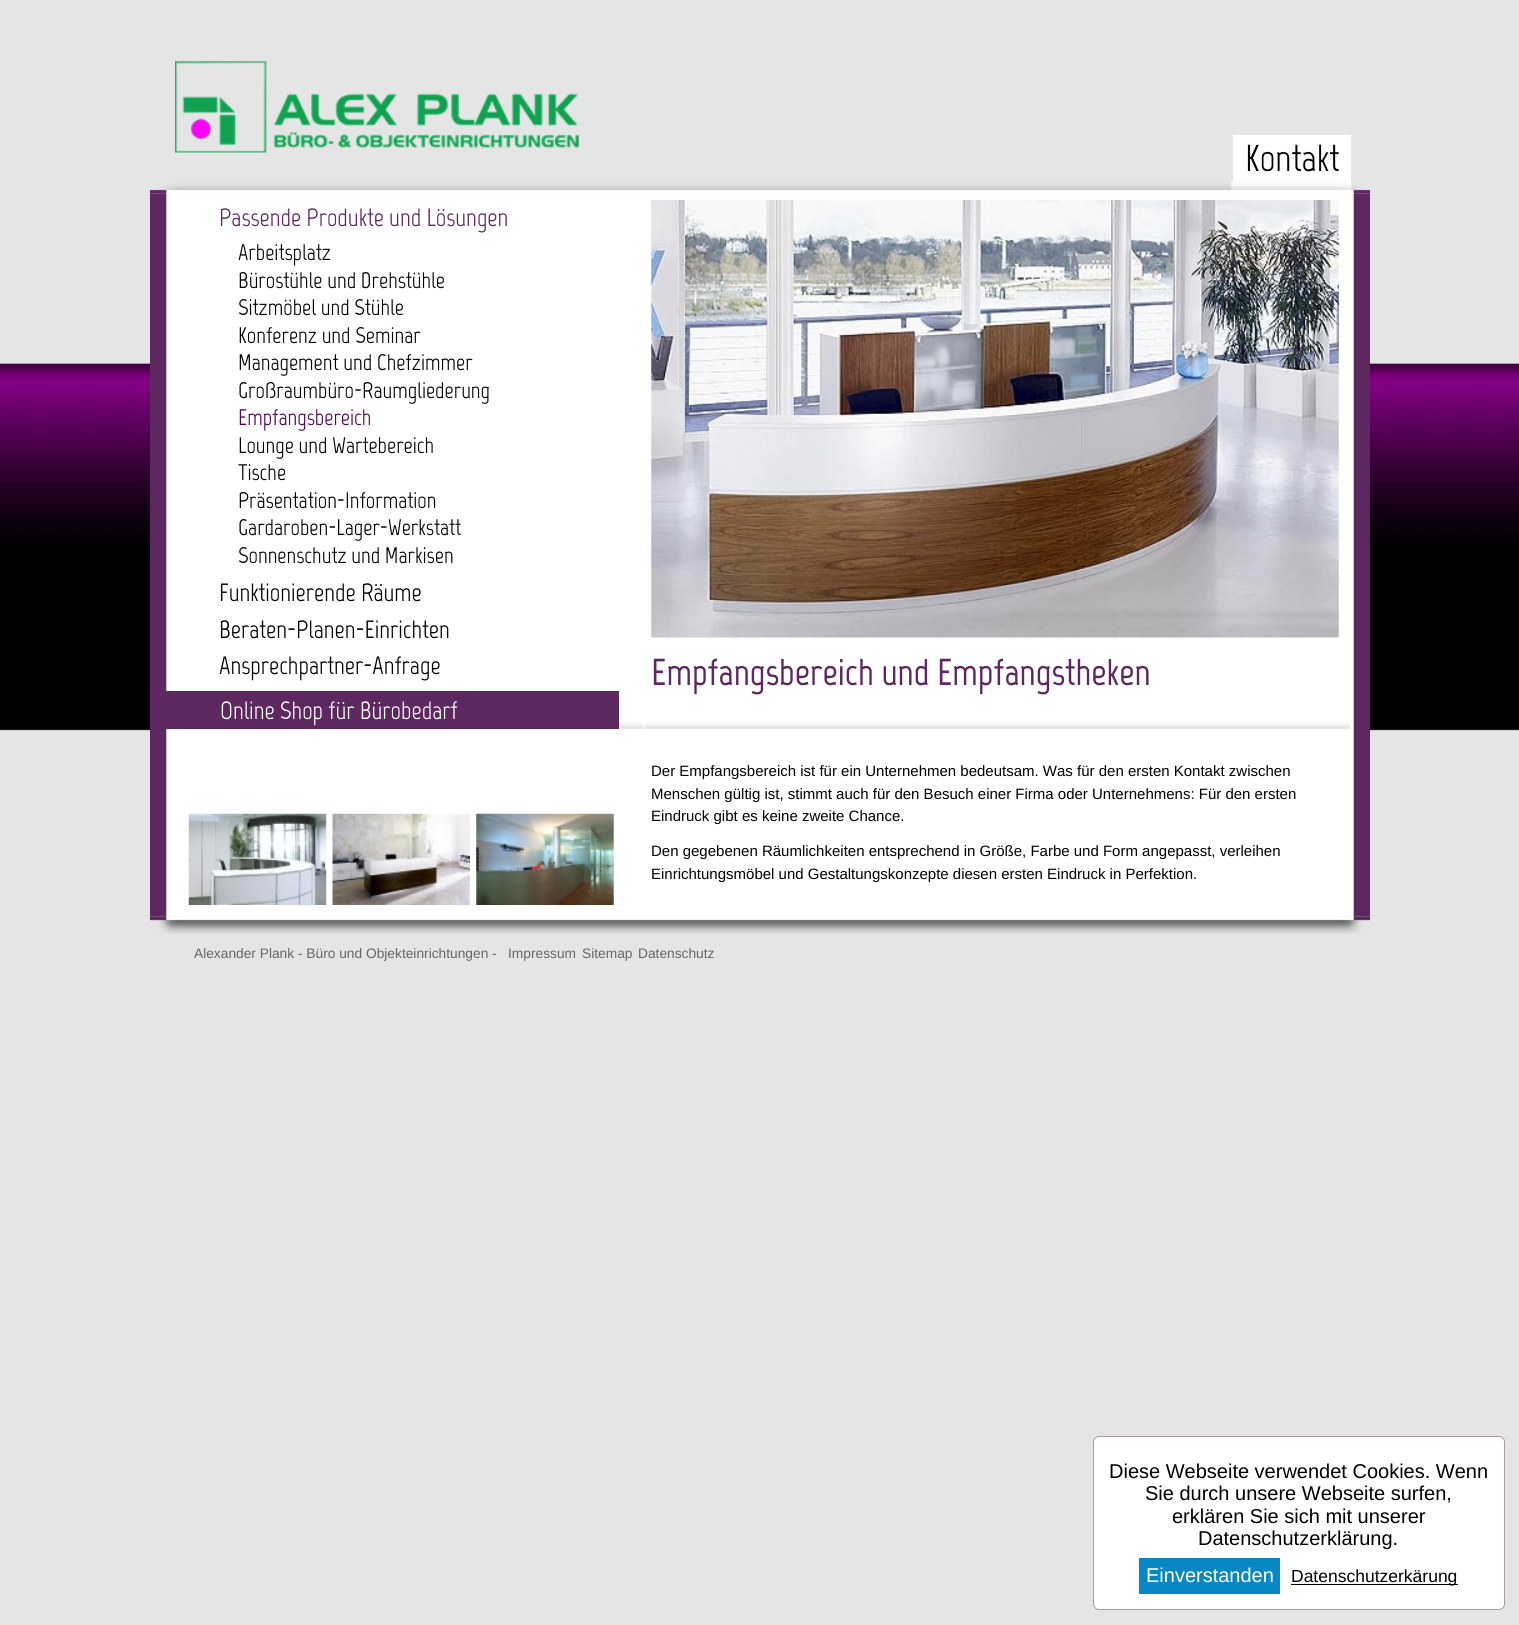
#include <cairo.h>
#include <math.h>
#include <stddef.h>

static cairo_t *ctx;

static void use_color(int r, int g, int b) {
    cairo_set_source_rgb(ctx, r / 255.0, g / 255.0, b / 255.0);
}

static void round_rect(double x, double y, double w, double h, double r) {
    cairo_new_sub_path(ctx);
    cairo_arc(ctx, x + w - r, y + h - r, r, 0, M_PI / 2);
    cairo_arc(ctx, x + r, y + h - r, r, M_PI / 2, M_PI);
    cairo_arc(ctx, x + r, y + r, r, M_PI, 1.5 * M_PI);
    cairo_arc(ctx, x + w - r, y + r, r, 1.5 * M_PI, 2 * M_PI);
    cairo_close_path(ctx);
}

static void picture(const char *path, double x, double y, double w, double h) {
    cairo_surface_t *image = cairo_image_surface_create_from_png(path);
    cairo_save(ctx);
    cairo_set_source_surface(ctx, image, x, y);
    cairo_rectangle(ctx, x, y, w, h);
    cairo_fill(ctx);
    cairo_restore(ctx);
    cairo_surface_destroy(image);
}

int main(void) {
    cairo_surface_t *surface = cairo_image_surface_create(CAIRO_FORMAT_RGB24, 1519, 1625);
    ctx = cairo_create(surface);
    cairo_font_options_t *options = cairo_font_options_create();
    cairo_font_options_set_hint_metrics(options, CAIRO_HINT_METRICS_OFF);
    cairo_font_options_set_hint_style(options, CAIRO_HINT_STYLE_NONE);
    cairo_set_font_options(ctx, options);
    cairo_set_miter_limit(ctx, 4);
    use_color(229, 229, 229);
    cairo_paint(ctx);
    picture("img1.png", 0, 363, 1519, 368);
    picture("img2.png", 175, 61, 404, 92);
    use_color(255, 255, 255);
    cairo_rectangle(ctx, 1233, 135, 118, 46);
    cairo_fill(ctx);
    cairo_select_font_face(ctx, "Marvel", CAIRO_FONT_SLANT_NORMAL, CAIRO_FONT_WEIGHT_NORMAL);
    cairo_set_font_size(ctx, 37.5);
    use_color(0, 0, 0);
    cairo_move_to(ctx, 1245, 171);
    cairo_show_text(ctx, "Kontakt");
    picture("img3.png", 150, 181, 1220, 13);
    picture("img11.png", 150, 916, 1220, 18);
    picture("img4.png", 150, 193, 1220, 724);
    cairo_set_font_size(ctx, 25);
    use_color(93, 39, 95);
    cairo_move_to(ctx, 219, 226);
    cairo_show_text(ctx, "Passende Produkte und Lösungen");
    cairo_set_font_size(ctx, 22.5);
    use_color(0, 0, 0);
    cairo_move_to(ctx, 238, 260);
    cairo_show_text(ctx, "Arbeitsplatz");
    cairo_move_to(ctx, 238, 288);
    cairo_show_text(ctx, "Bürostühle und Drehstühle");
    cairo_move_to(ctx, 238, 315);
    cairo_show_text(ctx, "Sitzmöbel und Stühle");
    cairo_move_to(ctx, 238, 343);
    cairo_show_text(ctx, "Konferenz und Seminar");
    cairo_move_to(ctx, 238, 370);
    cairo_show_text(ctx, "Management und Chefzimmer");
    cairo_move_to(ctx, 238, 398);
    cairo_show_text(ctx, "Großraumbüro-Raumgliederung");
    use_color(82, 0, 82);
    cairo_move_to(ctx, 238, 425);
    cairo_show_text(ctx, "Empfangsbereich");
    use_color(0, 0, 0);
    cairo_move_to(ctx, 238, 453);
    cairo_show_text(ctx, "Lounge und Wartebereich");
    cairo_move_to(ctx, 238, 480);
    cairo_show_text(ctx, "Tische");
    cairo_move_to(ctx, 238, 508);
    cairo_show_text(ctx, "Präsentation-Information");
    cairo_move_to(ctx, 238, 535);
    cairo_show_text(ctx, "Gardaroben-Lager-Werkstatt");
    cairo_move_to(ctx, 238, 563);
    cairo_show_text(ctx, "Sonnenschutz und Markisen");
    cairo_set_font_size(ctx, 25);
    cairo_move_to(ctx, 219, 601);
    cairo_show_text(ctx, "Funktionierende Räume");
    cairo_move_to(ctx, 219, 638);
    cairo_show_text(ctx, "Beraten-Planen-Einrichten");
    cairo_move_to(ctx, 219, 674);
    cairo_show_text(ctx, "Ansprechpartner-Anfrage");
    picture("img5.png", 619, 710, 25, 19);
    use_color(93, 39, 95);
    cairo_rectangle(ctx, 166, 691, 453, 38);
    cairo_fill(ctx);
    use_color(255, 255, 255);
    cairo_move_to(ctx, 220, 719);
    cairo_show_text(ctx, "Online Shop für Bürobedarf");
    picture("img6.png", 188, 813, 139, 92);
    picture("img7.png", 332, 813, 138, 92);
    picture("img8.png", 476, 813, 138, 92);
    picture("img9.png", 651, 200, 688, 438);
    picture("img10.png", 645, 722, 705, 7);
    cairo_select_font_face(ctx, "Marvel", CAIRO_FONT_SLANT_NORMAL, CAIRO_FONT_WEIGHT_BOLD);
    cairo_set_font_size(ctx, 37.5);
    use_color(93, 39, 95);
    cairo_move_to(ctx, 651, 685);
    cairo_show_text(ctx, "Empfangsbereich und Empfangstheken");
    cairo_select_font_face(ctx, "Liberation Sans", CAIRO_FONT_SLANT_NORMAL, CAIRO_FONT_WEIGHT_NORMAL);
    cairo_set_font_size(ctx, 15);
    use_color(0, 0, 0);
    cairo_move_to(ctx, 651, 776);
    cairo_show_text(ctx, "Der Empfangsbereich ist für ein Unternehmen bedeutsam. Was für den ersten Kontakt zwischen");
    cairo_move_to(ctx, 651, 799);
    cairo_show_text(ctx, "Menschen gültig ist, stimmt auch für den Besuch einer Firma oder Unternehmens: Für den ersten");
    cairo_move_to(ctx, 651, 821);
    cairo_show_text(ctx, "Eindruck gibt es keine zweite Chance.");
    cairo_move_to(ctx, 651, 856);
    cairo_show_text(ctx, "Den gegebenen Räumlichkeiten entsprechend in Größe, Farbe und Form angepasst, verleihen");
    cairo_move_to(ctx, 651, 879);
    cairo_show_text(ctx, "Einrichtungsmöbel und Gestaltungskonzepte diesen ersten Eindruck in Perfektion.");
    cairo_set_font_size(ctx, 13.75);
    use_color(102, 102, 102);
    cairo_move_to(ctx, 194, 958);
    cairo_show_text(ctx, "Alexander Plank - Büro und Objekteinrichtungen -");
    cairo_move_to(ctx, 508, 958);
    cairo_show_text(ctx, "Impressum");
    cairo_move_to(ctx, 582, 958);
    cairo_show_text(ctx, "Sitemap");
    cairo_move_to(ctx, 638, 958);
    cairo_show_text(ctx, "Datenschutz");
    use_color(255, 255, 255);
    round_rect(1093.5, 1436.5, 411, 173, 5.5);
    cairo_fill_preserve(ctx);
    use_color(172, 157, 154);
    cairo_set_line_width(ctx, 1);
    cairo_stroke(ctx);
    cairo_set_font_size(ctx, 20);
    use_color(0, 0, 0);
    cairo_move_to(ctx, 1109, 1478);
    cairo_show_text(ctx, "Diese Webseite verwendet Cookies. Wenn");
    cairo_move_to(ctx, 1145, 1500);
    cairo_show_text(ctx, "Sie durch unsere Webseite surfen,");
    cairo_move_to(ctx, 1172, 1523);
    cairo_show_text(ctx, "erklären Sie sich mit unserer");
    cairo_move_to(ctx, 1198, 1545);
    cairo_show_text(ctx, "Datenschutzerklärung.");
    use_color(8, 135, 197);
    cairo_rectangle(ctx, 1139, 1558, 141, 36);
    cairo_fill(ctx);
    use_color(255, 255, 255);
    cairo_move_to(ctx, 1146, 1582);
    cairo_show_text(ctx, "Einverstanden");
    use_color(0, 0, 0);
    cairo_rectangle(ctx, 1291, 1584, 167, 1);
    cairo_fill(ctx);
    cairo_set_font_size(ctx, 17.5);
    cairo_move_to(ctx, 1291, 1582);
    cairo_show_text(ctx, "Datenschutzerkärung");
    cairo_surface_write_to_png(surface, "result.png");
    cairo_font_options_destroy(options);
    cairo_destroy(ctx);
    cairo_surface_destroy(surface);
    return 0;
}
